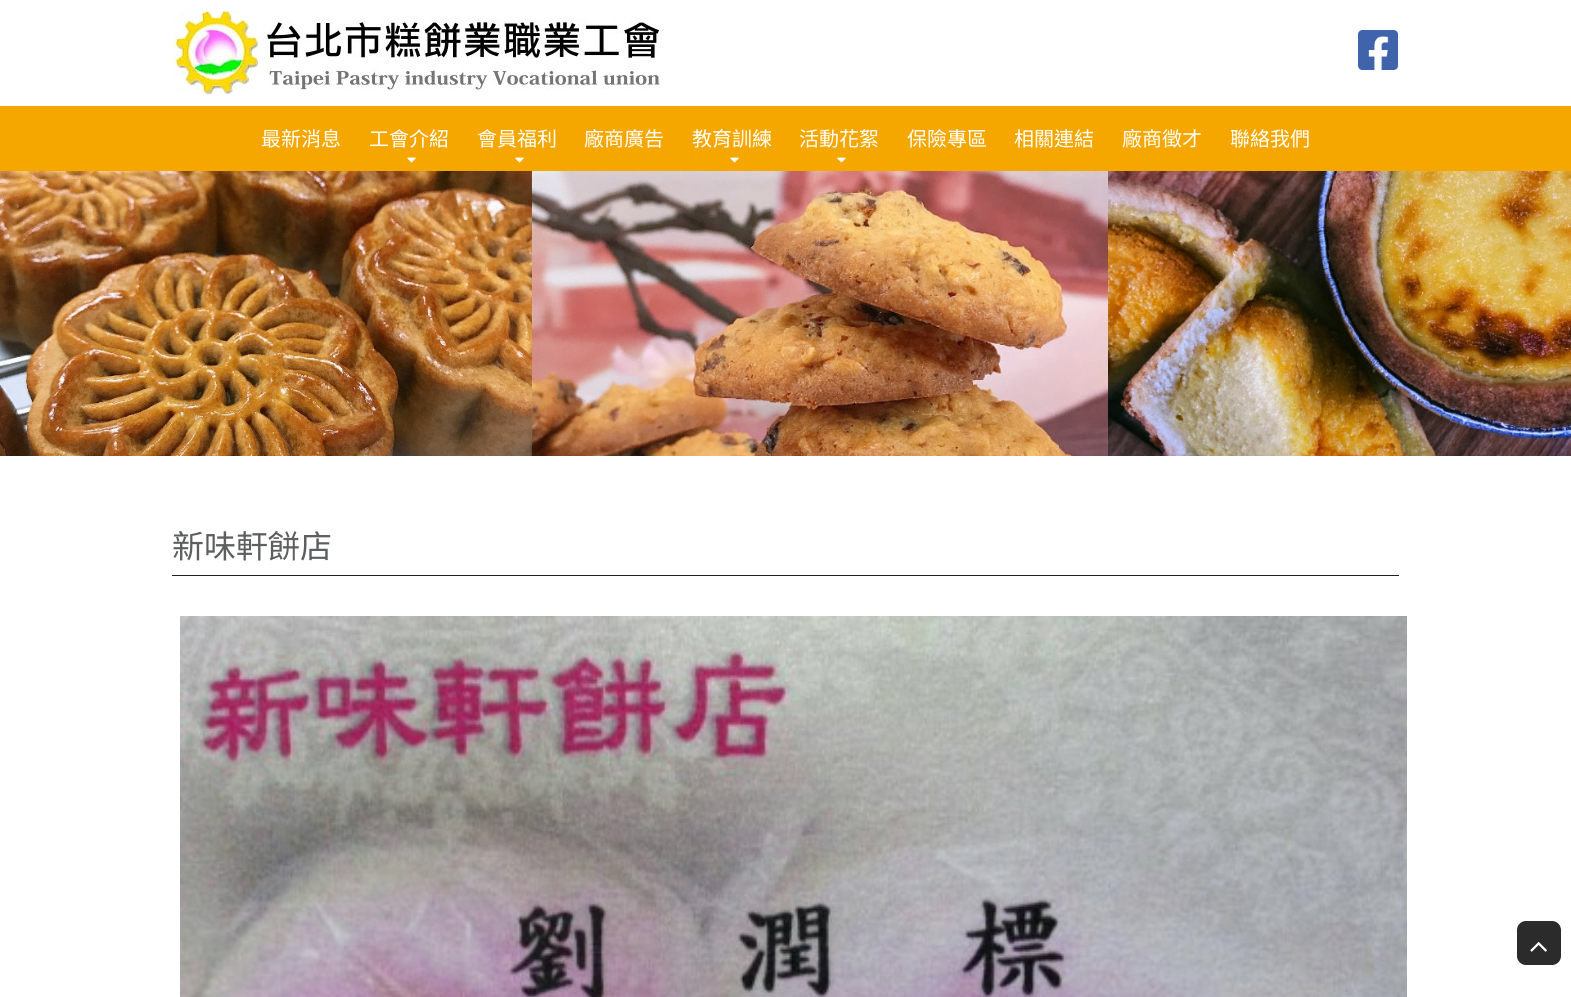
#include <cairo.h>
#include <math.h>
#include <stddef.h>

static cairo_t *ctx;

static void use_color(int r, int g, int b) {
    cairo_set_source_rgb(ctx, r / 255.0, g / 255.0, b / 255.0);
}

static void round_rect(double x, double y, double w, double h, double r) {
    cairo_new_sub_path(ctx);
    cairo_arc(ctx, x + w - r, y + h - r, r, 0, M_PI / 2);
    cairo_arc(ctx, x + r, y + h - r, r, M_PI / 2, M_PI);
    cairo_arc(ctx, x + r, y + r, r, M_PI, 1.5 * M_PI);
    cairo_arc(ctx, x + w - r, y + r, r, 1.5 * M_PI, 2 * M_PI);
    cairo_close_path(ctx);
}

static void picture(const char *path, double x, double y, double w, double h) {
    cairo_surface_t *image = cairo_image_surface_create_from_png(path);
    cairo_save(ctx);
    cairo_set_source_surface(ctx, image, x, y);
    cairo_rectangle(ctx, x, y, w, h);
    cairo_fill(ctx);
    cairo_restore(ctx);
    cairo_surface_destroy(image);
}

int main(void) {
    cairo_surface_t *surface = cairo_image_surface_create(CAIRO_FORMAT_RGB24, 1571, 997);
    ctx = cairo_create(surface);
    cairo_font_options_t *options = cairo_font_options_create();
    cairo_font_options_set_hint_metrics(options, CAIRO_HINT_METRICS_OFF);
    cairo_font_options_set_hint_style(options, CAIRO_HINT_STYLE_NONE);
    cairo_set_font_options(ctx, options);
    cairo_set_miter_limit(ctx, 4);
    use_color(255, 255, 255);
    cairo_paint(ctx);
    picture("img1.png", 173, 10, 488, 85);
    picture("img2.png", 1358, 30, 40, 40);
    use_color(245, 167, 0);
    cairo_rectangle(ctx, 0, 106, 1571, 65);
    cairo_fill(ctx);
    cairo_select_font_face(ctx, "Noto Sans TC", CAIRO_FONT_SLANT_NORMAL, CAIRO_FONT_WEIGHT_NORMAL);
    cairo_set_font_size(ctx, 20);
    use_color(255, 255, 255);
    cairo_move_to(ctx, 261, 146);
    cairo_show_text(ctx, "最新消息");
    cairo_move_to(ctx, 369, 146);
    cairo_show_text(ctx, "工會介紹");
    picture("img3.png", 407, 157, 9, 6);
    cairo_move_to(ctx, 477, 146);
    cairo_show_text(ctx, "會員福利");
    picture("img3.png", 515, 157, 9, 6);
    cairo_move_to(ctx, 584, 146);
    cairo_show_text(ctx, "廠商廣告");
    cairo_move_to(ctx, 692, 146);
    cairo_show_text(ctx, "教育訓練");
    picture("img3.png", 730, 157, 9, 6);
    cairo_move_to(ctx, 799, 146);
    cairo_show_text(ctx, "活動花絮");
    picture("img3.png", 837, 157, 9, 6);
    cairo_move_to(ctx, 907, 146);
    cairo_show_text(ctx, "保險專區");
    cairo_move_to(ctx, 1014, 146);
    cairo_show_text(ctx, "相關連結");
    cairo_move_to(ctx, 1122, 146);
    cairo_show_text(ctx, "廠商徵才");
    cairo_move_to(ctx, 1230, 146);
    cairo_show_text(ctx, "聯絡我們");
    picture("img4.png", 0, 171, 1571, 285);
    cairo_set_font_size(ctx, 32);
    use_color(93, 94, 95);
    cairo_move_to(ctx, 172, 558);
    cairo_show_text(ctx, "新味軒餅店");
    use_color(34, 30, 31);
    cairo_rectangle(ctx, 172, 575, 1227, 1);
    cairo_fill(ctx);
    picture("img5.png", 180, 616, 1227, 381);
    use_color(43, 43, 43);
    round_rect(1517, 921, 44, 44, 9);
    cairo_fill(ctx);
    picture("img6.png", 1530, 942, 17, 10);
    cairo_surface_write_to_png(surface, "result.png");
    cairo_font_options_destroy(options);
    cairo_destroy(ctx);
    cairo_surface_destroy(surface);
    return 0;
}
